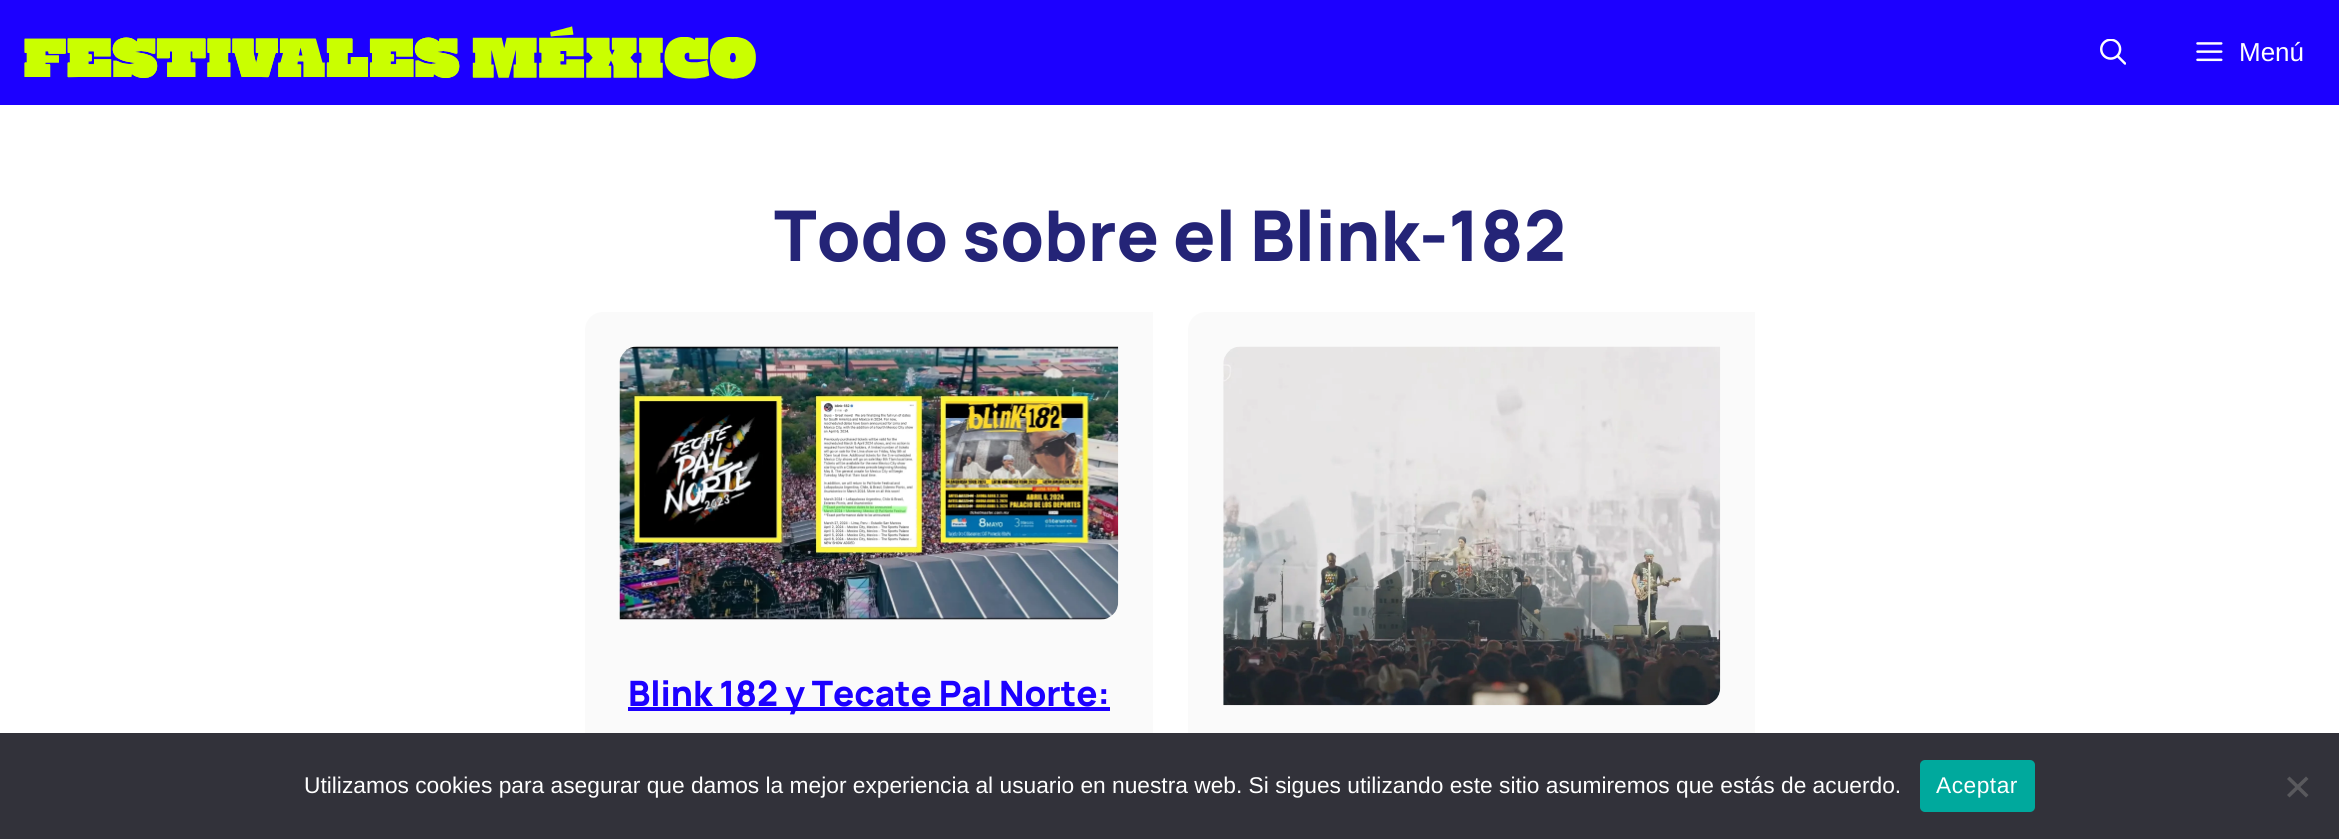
#include <cairo.h>
#include <math.h>
#include <stddef.h>

static cairo_t *ctx;

static void use_color(int r, int g, int b) {
    cairo_set_source_rgb(ctx, r / 255.0, g / 255.0, b / 255.0);
}

static void spaced_text(double x, double y, const char *s, double letter, double word) {
    cairo_move_to(ctx, x, y);
    while (*s) {
        char ch[5] = {0};
        int n = 0;
        do ch[n++] = *s++; while ((*s & 0xC0) == 0x80);
        cairo_show_text(ctx, ch);
        cairo_rel_move_to(ctx, letter + word * (*ch == ' '), 0);
    }
}

static void round_rect(double x, double y, double w, double h, double r) {
    cairo_new_sub_path(ctx);
    cairo_arc(ctx, x + w - r, y + h - r, r, 0, M_PI / 2);
    cairo_arc(ctx, x + r, y + h - r, r, M_PI / 2, M_PI);
    cairo_arc(ctx, x + r, y + r, r, M_PI, 1.5 * M_PI);
    cairo_arc(ctx, x + w - r, y + r, r, 1.5 * M_PI, 2 * M_PI);
    cairo_close_path(ctx);
}

static void picture(const char *path, double x, double y, double w, double h) {
    cairo_surface_t *image = cairo_image_surface_create_from_png(path);
    cairo_save(ctx);
    cairo_set_source_surface(ctx, image, x, y);
    cairo_rectangle(ctx, x, y, w, h);
    cairo_fill(ctx);
    cairo_restore(ctx);
    cairo_surface_destroy(image);
}

int main(void) {
    cairo_surface_t *surface = cairo_image_surface_create(CAIRO_FORMAT_RGB24, 2339, 839);
    ctx = cairo_create(surface);
    cairo_font_options_t *options = cairo_font_options_create();
    cairo_font_options_set_hint_metrics(options, CAIRO_HINT_METRICS_OFF);
    cairo_font_options_set_hint_style(options, CAIRO_HINT_STYLE_NONE);
    cairo_set_font_options(ctx, options);
    cairo_set_miter_limit(ctx, 4);
    use_color(255, 255, 255);
    cairo_paint(ctx);
    use_color(28, 0, 255);
    cairo_rectangle(ctx, 0, 0, 2339, 105);
    cairo_fill(ctx);
    picture("img1.png", 24, 26, 732, 53);
    picture("img2.png", 2100, 39, 26, 26);
    picture("img3.png", 2196, 42, 27, 20);
    cairo_select_font_face(ctx, "Liberation Sans", CAIRO_FONT_SLANT_NORMAL, CAIRO_FONT_WEIGHT_NORMAL);
    cairo_set_font_size(ctx, 26);
    use_color(255, 255, 255);
    cairo_move_to(ctx, 2239, 61);
    cairo_show_text(ctx, "Menú");
    cairo_select_font_face(ctx, "Manrope ExtraBold", CAIRO_FONT_SLANT_NORMAL, CAIRO_FONT_WEIGHT_NORMAL);
    cairo_set_font_size(ctx, 70);
    use_color(36, 36, 119);
    spaced_text(774, 261, "Todo sobre el Blink-182", -0.05, 0);
    use_color(250, 250, 250);
    cairo_new_path(ctx);
    cairo_move_to(ctx, 603, 312);
    cairo_line_to(ctx, 1153, 312);
    cairo_line_to(ctx, 1153, 839);
    cairo_curve_to(ctx, 1153, 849, 1145, 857, 1135, 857);
    cairo_line_to(ctx, 585, 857);
    cairo_line_to(ctx, 585, 330);
    cairo_curve_to(ctx, 585, 320, 593, 312, 603, 312);
    cairo_close_path(ctx);
    cairo_fill(ctx);
    picture("img4.png", 619, 346, 500, 274);
    use_color(28, 0, 255);
    cairo_rectangle(ctx, 628, 707, 482, 4);
    cairo_fill(ctx);
    cairo_set_font_size(ctx, 35);
    spaced_text(628, 706, "Blink 182 y Tecate Pal Norte:", -0.05, 0);
    use_color(250, 250, 250);
    cairo_new_path(ctx);
    cairo_move_to(ctx, 1206, 312);
    cairo_line_to(ctx, 1755, 312);
    cairo_line_to(ctx, 1755, 839);
    cairo_curve_to(ctx, 1755, 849, 1747, 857, 1737, 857);
    cairo_line_to(ctx, 1188, 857);
    cairo_line_to(ctx, 1188, 330);
    cairo_curve_to(ctx, 1188, 320, 1196, 312, 1206, 312);
    cairo_close_path(ctx);
    cairo_fill(ctx);
    picture("img5.png", 1223, 346, 498, 360);
    use_color(50, 50, 58);
    cairo_rectangle(ctx, 0, 733, 2339, 106);
    cairo_fill(ctx);
    cairo_select_font_face(ctx, "Liberation Sans", CAIRO_FONT_SLANT_NORMAL, CAIRO_FONT_WEIGHT_NORMAL);
    cairo_set_font_size(ctx, 22.75);
    use_color(255, 255, 255);
    cairo_move_to(ctx, 304, 793);
    cairo_show_text(ctx, "Utilizamos cookies para asegurar que damos la mejor experiencia al usuario en nuestra web. Si sigues utilizando este sitio asumiremos que estás de acuerdo.");
    use_color(0, 169, 157);
    round_rect(1920, 760, 115, 52, 5);
    cairo_fill(ctx);
    use_color(255, 255, 255);
    spaced_text(1936, 793, "Aceptar", 0.5, 0);
    use_color(89, 89, 93);
    cairo_new_path(ctx);
    cairo_move_to(ctx, 2306, 776.5);
    cairo_line_to(ctx, 2308.5, 779);
    cairo_line_to(ctx, 2289.5, 797.5);
    cairo_line_to(ctx, 2287, 795);
    cairo_close_path(ctx);
    cairo_fill(ctx);
    cairo_new_path(ctx);
    cairo_move_to(ctx, 2287, 779);
    cairo_line_to(ctx, 2289.5, 776.5);
    cairo_line_to(ctx, 2308.5, 795);
    cairo_line_to(ctx, 2306, 797.5);
    cairo_close_path(ctx);
    cairo_fill(ctx);
    cairo_surface_write_to_png(surface, "result.png");
    cairo_font_options_destroy(options);
    cairo_destroy(ctx);
    cairo_surface_destroy(surface);
    return 0;
}
